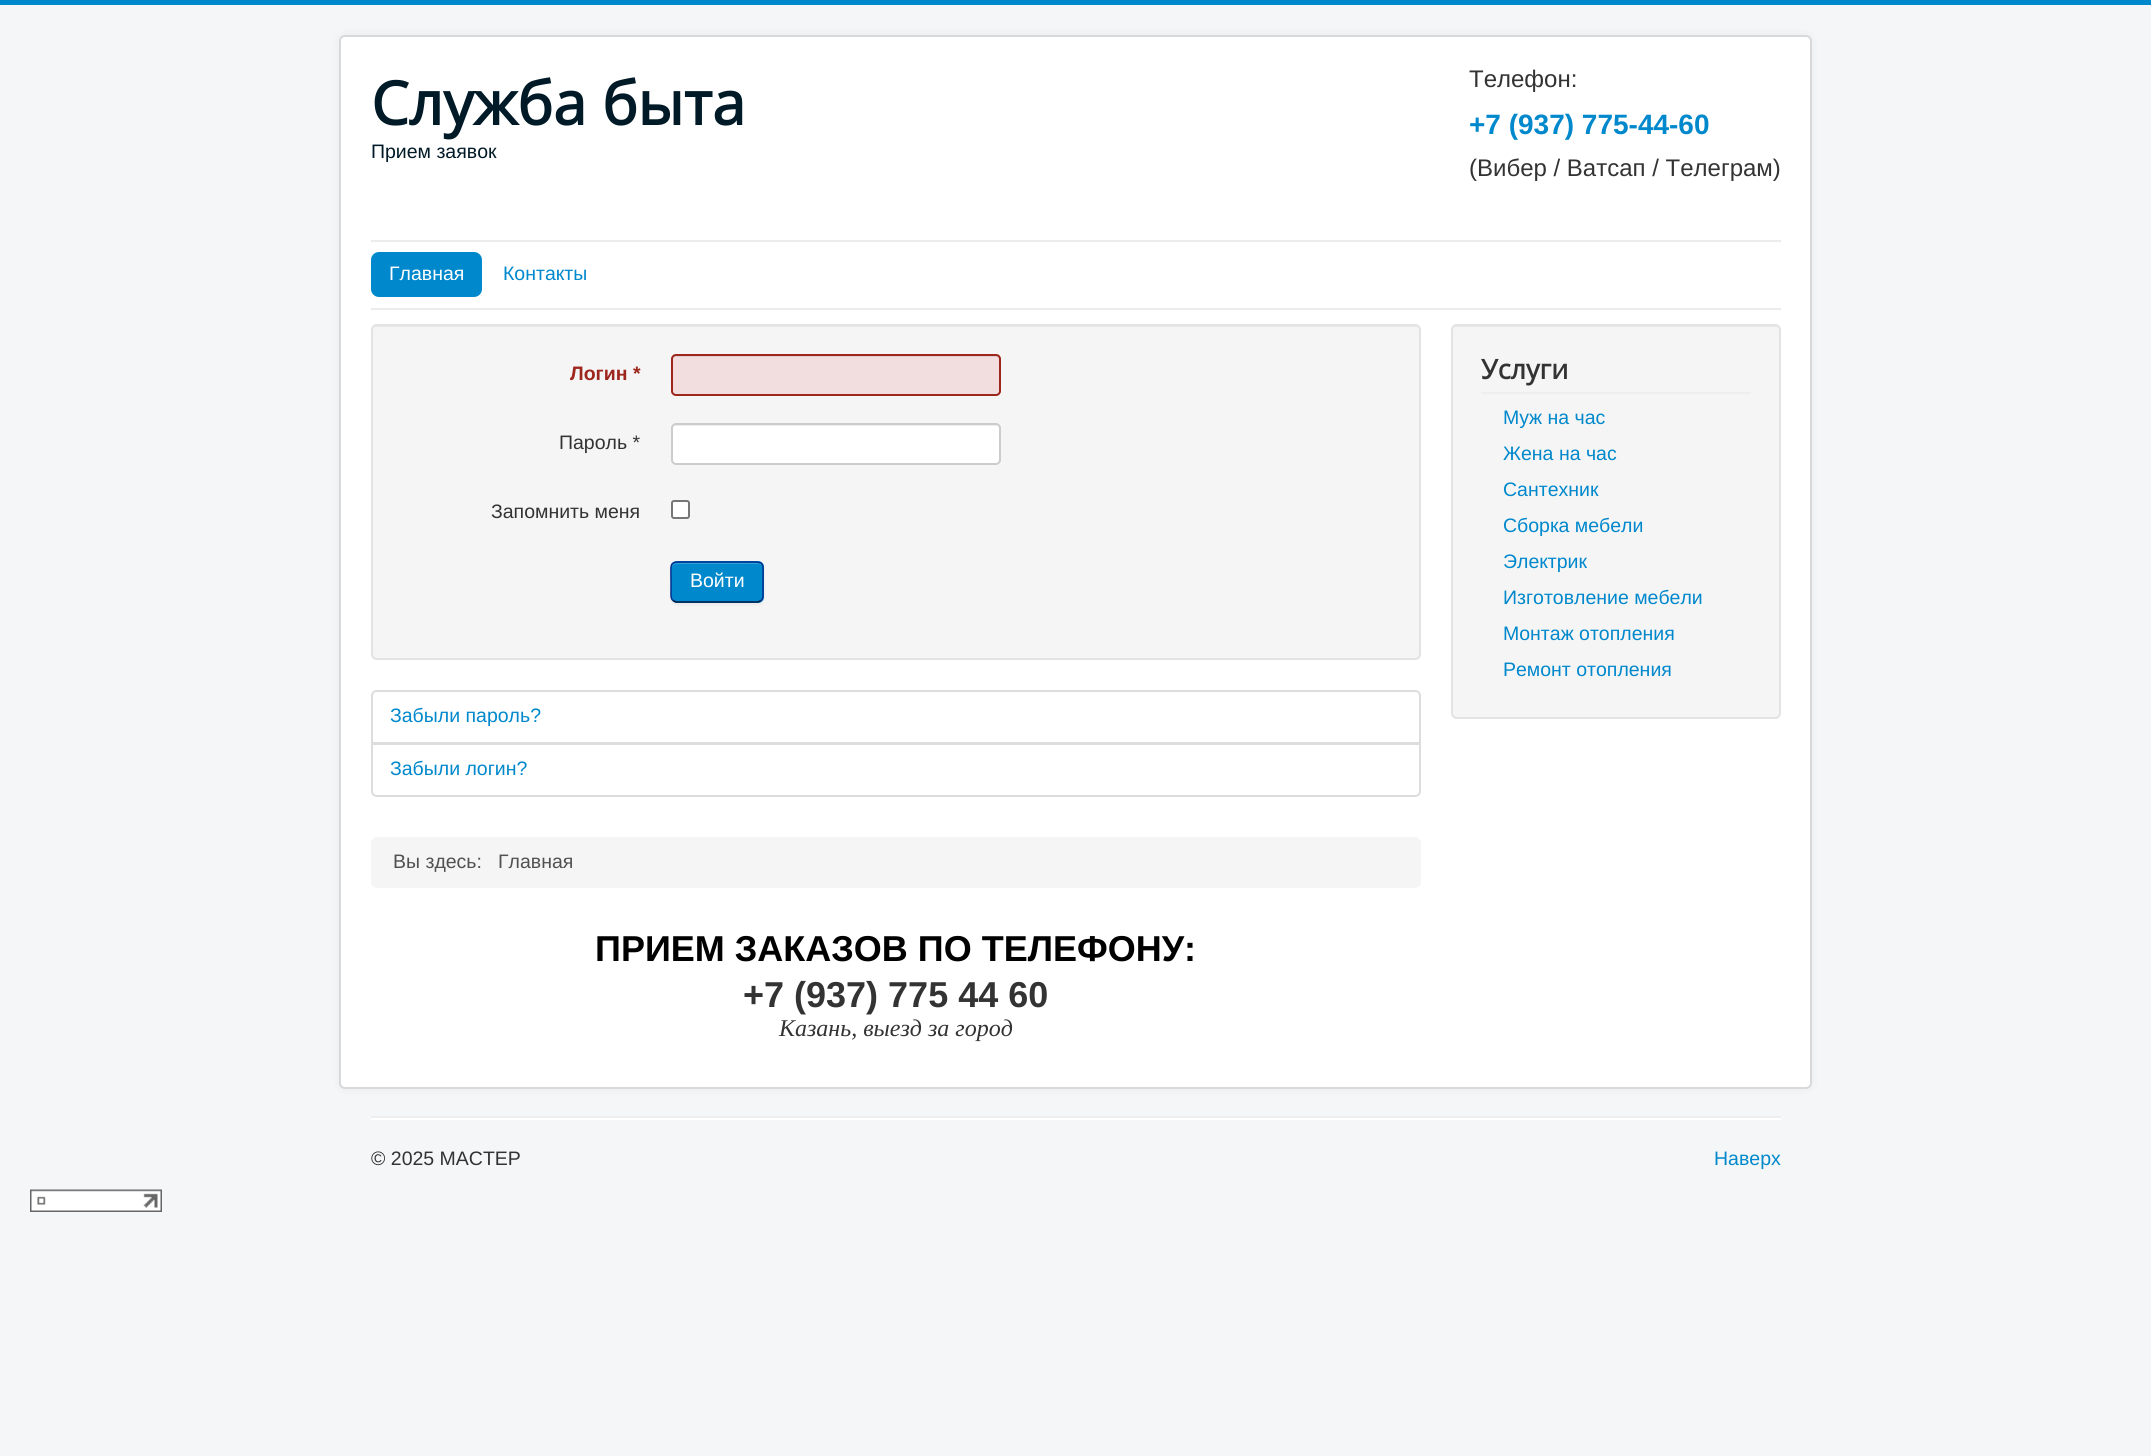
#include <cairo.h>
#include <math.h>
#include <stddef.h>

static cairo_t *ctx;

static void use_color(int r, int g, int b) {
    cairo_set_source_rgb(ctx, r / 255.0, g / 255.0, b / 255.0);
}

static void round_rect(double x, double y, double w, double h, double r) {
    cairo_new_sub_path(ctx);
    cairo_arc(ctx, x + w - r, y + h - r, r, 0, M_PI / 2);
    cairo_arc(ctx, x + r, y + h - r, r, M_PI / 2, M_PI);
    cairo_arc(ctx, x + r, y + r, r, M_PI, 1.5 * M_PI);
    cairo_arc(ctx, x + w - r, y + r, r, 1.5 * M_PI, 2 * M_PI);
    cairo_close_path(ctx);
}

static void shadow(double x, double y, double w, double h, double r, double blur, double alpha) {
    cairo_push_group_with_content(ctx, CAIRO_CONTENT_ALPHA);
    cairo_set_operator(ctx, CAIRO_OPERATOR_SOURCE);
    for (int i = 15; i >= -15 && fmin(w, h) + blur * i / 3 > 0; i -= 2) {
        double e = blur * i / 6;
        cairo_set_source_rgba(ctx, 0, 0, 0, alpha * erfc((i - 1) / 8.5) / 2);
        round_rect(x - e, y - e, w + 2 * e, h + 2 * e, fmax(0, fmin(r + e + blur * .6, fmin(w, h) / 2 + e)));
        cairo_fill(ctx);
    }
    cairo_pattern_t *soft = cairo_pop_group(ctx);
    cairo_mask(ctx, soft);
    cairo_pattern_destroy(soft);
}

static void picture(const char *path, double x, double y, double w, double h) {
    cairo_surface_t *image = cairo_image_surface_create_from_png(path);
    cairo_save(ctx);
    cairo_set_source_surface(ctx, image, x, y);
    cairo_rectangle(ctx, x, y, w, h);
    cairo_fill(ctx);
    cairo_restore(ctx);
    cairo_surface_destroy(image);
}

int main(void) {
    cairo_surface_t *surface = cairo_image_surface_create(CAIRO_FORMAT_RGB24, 2151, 1456);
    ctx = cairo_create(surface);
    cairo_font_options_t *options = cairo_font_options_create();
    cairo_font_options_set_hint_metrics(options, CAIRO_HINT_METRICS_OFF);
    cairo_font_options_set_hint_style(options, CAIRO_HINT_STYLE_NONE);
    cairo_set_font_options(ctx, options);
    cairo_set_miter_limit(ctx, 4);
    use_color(244, 246, 247);
    cairo_paint(ctx);
    use_color(0, 136, 204);
    cairo_rectangle(ctx, 0, 0, 2151, 5);
    cairo_fill(ctx);
    use_color(0, 0, 0);
    shadow(339, 35, 1473, 1054, 6, 4.5, 0.05);
    use_color(255, 255, 255);
    round_rect(339, 35, 1473, 1054, 6);
    cairo_fill(ctx);
    round_rect(340, 36, 1471, 1052, 5);
    cairo_set_source_rgba(ctx, 0, 0, 0, 0.15);
    cairo_stroke(ctx);
    cairo_select_font_face(ctx, "Open Sans", CAIRO_FONT_SLANT_NORMAL, CAIRO_FONT_WEIGHT_BOLD);
    cairo_set_font_size(ctx, 60);
    use_color(0, 26, 39);
    cairo_move_to(ctx, 371, 125);
    cairo_show_text(ctx, "Служба быта");
    cairo_select_font_face(ctx, "Liberation Sans", CAIRO_FONT_SLANT_NORMAL, CAIRO_FONT_WEIGHT_NORMAL);
    cairo_set_font_size(ctx, 19.5);
    cairo_move_to(ctx, 371, 158);
    cairo_show_text(ctx, "Прием заявок");
    cairo_set_font_size(ctx, 24);
    use_color(51, 51, 51);
    cairo_move_to(ctx, 1469, 87);
    cairo_show_text(ctx, "Телефон:");
    cairo_select_font_face(ctx, "Liberation Sans", CAIRO_FONT_SLANT_NORMAL, CAIRO_FONT_WEIGHT_BOLD);
    cairo_set_font_size(ctx, 28);
    use_color(0, 136, 204);
    cairo_move_to(ctx, 1469, 134);
    cairo_show_text(ctx, "+7 (937) 775-44-60");
    cairo_select_font_face(ctx, "Liberation Sans", CAIRO_FONT_SLANT_NORMAL, CAIRO_FONT_WEIGHT_NORMAL);
    cairo_set_font_size(ctx, 24);
    use_color(51, 51, 51);
    cairo_move_to(ctx, 1469, 176);
    cairo_show_text(ctx, "(Вибер / Ватсап / Телеграм)");
    use_color(236, 236, 236);
    cairo_rectangle(ctx, 371, 240, 1410, 2);
    cairo_fill(ctx);
    cairo_rectangle(ctx, 371, 308, 1410, 2);
    cairo_fill(ctx);
    use_color(0, 136, 204);
    round_rect(371, 252, 111, 45, 8);
    cairo_fill(ctx);
    cairo_set_font_size(ctx, 19.5);
    use_color(255, 255, 255);
    cairo_move_to(ctx, 389, 280);
    cairo_show_text(ctx, "Главная");
    use_color(0, 136, 204);
    cairo_move_to(ctx, 503, 280);
    cairo_show_text(ctx, "Контакты");
    use_color(245, 245, 245);
    round_rect(371, 324, 1050, 336, 6);
    cairo_fill(ctx);
    use_color(233, 233, 233);
    cairo_new_path(ctx);
    cairo_move_to(ctx, 376, 327);
    cairo_line_to(ctx, 1414, 327);
    cairo_curve_to(ctx, 1417, 327, 1419, 329, 1419, 332);
    cairo_curve_to(ctx, 1419, 329, 1417, 326, 1414, 326);
    cairo_line_to(ctx, 377, 326);
    cairo_curve_to(ctx, 374, 326, 372, 329, 372, 332);
    cairo_curve_to(ctx, 372, 329, 374, 327, 376, 327);
    cairo_close_path(ctx);
    cairo_fill(ctx);
    round_rect(372, 325, 1048, 334, 5);
    use_color(227, 227, 227);
    cairo_stroke(ctx);
    cairo_select_font_face(ctx, "Liberation Sans", CAIRO_FONT_SLANT_NORMAL, CAIRO_FONT_WEIGHT_BOLD);
    use_color(157, 38, 29);
    cairo_move_to(ctx, 570, 380);
    cairo_show_text(ctx, "Логин *");
    use_color(242, 222, 222);
    round_rect(671, 354, 330, 42, 5);
    cairo_fill(ctx);
    use_color(224, 205, 205);
    cairo_new_path(ctx);
    cairo_move_to(ctx, 675, 357);
    cairo_line_to(ctx, 996, 357);
    cairo_curve_to(ctx, 998, 357, 999, 358, 999, 360);
    cairo_curve_to(ctx, 999, 358, 998, 356, 996, 356);
    cairo_line_to(ctx, 675, 356);
    cairo_curve_to(ctx, 673, 356, 672, 358, 672, 360);
    cairo_curve_to(ctx, 672, 358, 673, 357, 675, 357);
    cairo_close_path(ctx);
    cairo_fill(ctx);
    round_rect(672, 355, 328, 40, 4);
    use_color(157, 38, 29);
    cairo_stroke(ctx);
    cairo_select_font_face(ctx, "Liberation Sans", CAIRO_FONT_SLANT_NORMAL, CAIRO_FONT_WEIGHT_NORMAL);
    use_color(51, 51, 51);
    cairo_move_to(ctx, 559, 449);
    cairo_show_text(ctx, "Пароль *");
    use_color(255, 255, 255);
    round_rect(671, 423, 330, 42, 5);
    cairo_fill(ctx);
    use_color(236, 236, 236);
    cairo_new_path(ctx);
    cairo_move_to(ctx, 675, 426);
    cairo_line_to(ctx, 996, 426);
    cairo_curve_to(ctx, 998, 426, 999, 427, 999, 429);
    cairo_curve_to(ctx, 999, 427, 998, 425, 996, 425);
    cairo_line_to(ctx, 675, 425);
    cairo_curve_to(ctx, 673, 425, 672, 427, 672, 429);
    cairo_curve_to(ctx, 672, 427, 673, 426, 675, 426);
    cairo_close_path(ctx);
    cairo_fill(ctx);
    round_rect(672, 424, 328, 40, 4);
    use_color(204, 204, 204);
    cairo_stroke(ctx);
    use_color(51, 51, 51);
    cairo_move_to(ctx, 491, 518);
    cairo_show_text(ctx, "Запомнить меня");
    use_color(255, 255, 255);
    round_rect(672, 501, 17, 17, 2);
    cairo_fill_preserve(ctx);
    use_color(118, 118, 118);
    cairo_stroke(ctx);
    use_color(0, 0, 0);
    shadow(671, 563, 93, 42, 6, 1.5, 0.05);
    use_color(0, 136, 204);
    round_rect(671, 561, 93, 42, 6);
    cairo_fill(ctx);
    use_color(51, 160, 214);
    cairo_new_path(ctx);
    cairo_move_to(ctx, 676, 564);
    cairo_line_to(ctx, 758, 564);
    cairo_curve_to(ctx, 760, 564, 762, 566, 762, 568);
    cairo_curve_to(ctx, 762, 565, 760, 563, 757, 563);
    cairo_line_to(ctx, 677, 563);
    cairo_curve_to(ctx, 674, 563, 672, 565, 672, 568);
    cairo_curve_to(ctx, 672, 566, 674, 564, 676, 564);
    cairo_close_path(ctx);
    cairo_fill(ctx);
    cairo_new_path(ctx);
    cairo_move_to(ctx, 761, 600.5);
    cairo_line_to(ctx, 758, 602);
    cairo_line_to(ctx, 676, 602);
    cairo_line_to(ctx, 673, 600.5);
    use_color(0, 22, 65);
    cairo_set_line_width(ctx, 1.5);
    cairo_stroke(ctx);
    cairo_new_path(ctx);
    cairo_move_to(ctx, 673, 600.5);
    cairo_curve_to(ctx, 670.5, 598.5, 671, 595, 671, 592);
    cairo_line_to(ctx, 671, 582);
    cairo_curve_to(ctx, 671, 560, 668, 562, 690, 562);
    cairo_line_to(ctx, 744, 562);
    cairo_curve_to(ctx, 766, 562, 763, 560, 763, 582);
    cairo_line_to(ctx, 763, 592);
    cairo_curve_to(ctx, 763, 595, 763.5, 598.5, 761, 600.5);
    use_color(0, 47, 141);
    cairo_stroke(ctx);
    use_color(255, 255, 255);
    cairo_move_to(ctx, 690, 587);
    cairo_show_text(ctx, "Войти");
    cairo_new_path(ctx);
    cairo_move_to(ctx, 377, 691);
    cairo_line_to(ctx, 1415, 691);
    cairo_curve_to(ctx, 1418, 691, 1420, 693, 1420, 696);
    cairo_line_to(ctx, 1420, 743);
    cairo_line_to(ctx, 372, 743);
    cairo_line_to(ctx, 372, 696);
    cairo_curve_to(ctx, 372, 693, 374, 691, 377, 691);
    cairo_close_path(ctx);
    use_color(221, 221, 221);
    cairo_set_line_width(ctx, 2);
    cairo_stroke(ctx);
    use_color(0, 136, 204);
    cairo_move_to(ctx, 390, 722);
    cairo_show_text(ctx, "Забыли пароль?");
    cairo_new_path(ctx);
    cairo_move_to(ctx, 372, 744);
    cairo_line_to(ctx, 1420, 744);
    cairo_line_to(ctx, 1420, 791);
    cairo_curve_to(ctx, 1420, 794, 1418, 796, 1415, 796);
    cairo_line_to(ctx, 377, 796);
    cairo_curve_to(ctx, 374, 796, 372, 794, 372, 791);
    cairo_close_path(ctx);
    use_color(221, 221, 221);
    cairo_stroke(ctx);
    use_color(0, 136, 204);
    cairo_move_to(ctx, 390, 775);
    cairo_show_text(ctx, "Забыли логин?");
    use_color(245, 245, 245);
    round_rect(371, 837, 1050, 51, 6);
    cairo_fill(ctx);
    use_color(81, 81, 81);
    cairo_move_to(ctx, 393, 868);
    cairo_show_text(ctx, "Вы здесь:");
    cairo_move_to(ctx, 498, 868);
    cairo_show_text(ctx, "Главная");
    cairo_select_font_face(ctx, "Liberation Sans", CAIRO_FONT_SLANT_NORMAL, CAIRO_FONT_WEIGHT_BOLD);
    cairo_set_font_size(ctx, 36);
    use_color(0, 0, 0);
    cairo_move_to(ctx, 595, 961);
    cairo_show_text(ctx, "ПРИЕМ ЗАКАЗОВ ПО ТЕЛЕФОНУ:");
    use_color(51, 51, 51);
    cairo_move_to(ctx, 743, 1007);
    cairo_show_text(ctx, "+7 (937) 775 44 60");
    cairo_select_font_face(ctx, "Liberation Serif", CAIRO_FONT_SLANT_ITALIC, CAIRO_FONT_WEIGHT_NORMAL);
    cairo_set_font_size(ctx, 24);
    cairo_move_to(ctx, 779, 1036);
    cairo_show_text(ctx, "Казань, выезд за город");
    use_color(245, 245, 245);
    round_rect(1451, 324, 330, 395, 6);
    cairo_fill(ctx);
    use_color(233, 233, 233);
    cairo_new_path(ctx);
    cairo_move_to(ctx, 1456, 327);
    cairo_line_to(ctx, 1774, 327);
    cairo_curve_to(ctx, 1777, 327, 1779, 329, 1779, 332);
    cairo_curve_to(ctx, 1779, 329, 1777, 326, 1774, 326);
    cairo_line_to(ctx, 1457, 326);
    cairo_curve_to(ctx, 1454, 326, 1452, 329, 1452, 332);
    cairo_curve_to(ctx, 1452, 329, 1454, 327, 1456, 327);
    cairo_close_path(ctx);
    cairo_fill(ctx);
    round_rect(1452, 325, 328, 393, 5);
    use_color(227, 227, 227);
    cairo_stroke(ctx);
    use_color(238, 238, 238);
    cairo_rectangle(ctx, 1481, 392, 270, 2);
    cairo_fill(ctx);
    cairo_select_font_face(ctx, "Open Sans", CAIRO_FONT_SLANT_NORMAL, CAIRO_FONT_WEIGHT_BOLD);
    cairo_set_font_size(ctx, 27);
    use_color(51, 51, 51);
    cairo_move_to(ctx, 1481, 379);
    cairo_show_text(ctx, "Услуги");
    cairo_select_font_face(ctx, "Liberation Sans", CAIRO_FONT_SLANT_NORMAL, CAIRO_FONT_WEIGHT_NORMAL);
    cairo_set_font_size(ctx, 19.5);
    use_color(0, 136, 204);
    cairo_move_to(ctx, 1503, 424);
    cairo_show_text(ctx, "Муж на час");
    cairo_move_to(ctx, 1503, 460);
    cairo_show_text(ctx, "Жена на час");
    cairo_move_to(ctx, 1503, 496);
    cairo_show_text(ctx, "Сантехник");
    cairo_move_to(ctx, 1503, 532);
    cairo_show_text(ctx, "Сборка мебели");
    cairo_move_to(ctx, 1503, 568);
    cairo_show_text(ctx, "Электрик");
    cairo_move_to(ctx, 1503, 604);
    cairo_show_text(ctx, "Изготовление мебели");
    cairo_move_to(ctx, 1503, 640);
    cairo_show_text(ctx, "Монтаж отопления");
    cairo_move_to(ctx, 1503, 676);
    cairo_show_text(ctx, "Ремонт отопления");
    use_color(238, 238, 238);
    cairo_rectangle(ctx, 371, 1116, 1410, 2);
    cairo_fill(ctx);
    use_color(255, 255, 255);
    cairo_rectangle(ctx, 371, 1118, 1410, 2);
    cairo_fill(ctx);
    use_color(51, 51, 51);
    cairo_move_to(ctx, 371, 1165);
    cairo_show_text(ctx, "© 2025 МАСТЕР");
    use_color(0, 136, 204);
    cairo_move_to(ctx, 1714, 1165);
    cairo_show_text(ctx, "Наверх");
    picture("img1.png", 30, 1189, 132, 23);
    cairo_surface_write_to_png(surface, "result.png");
    cairo_font_options_destroy(options);
    cairo_destroy(ctx);
    cairo_surface_destroy(surface);
    return 0;
}
